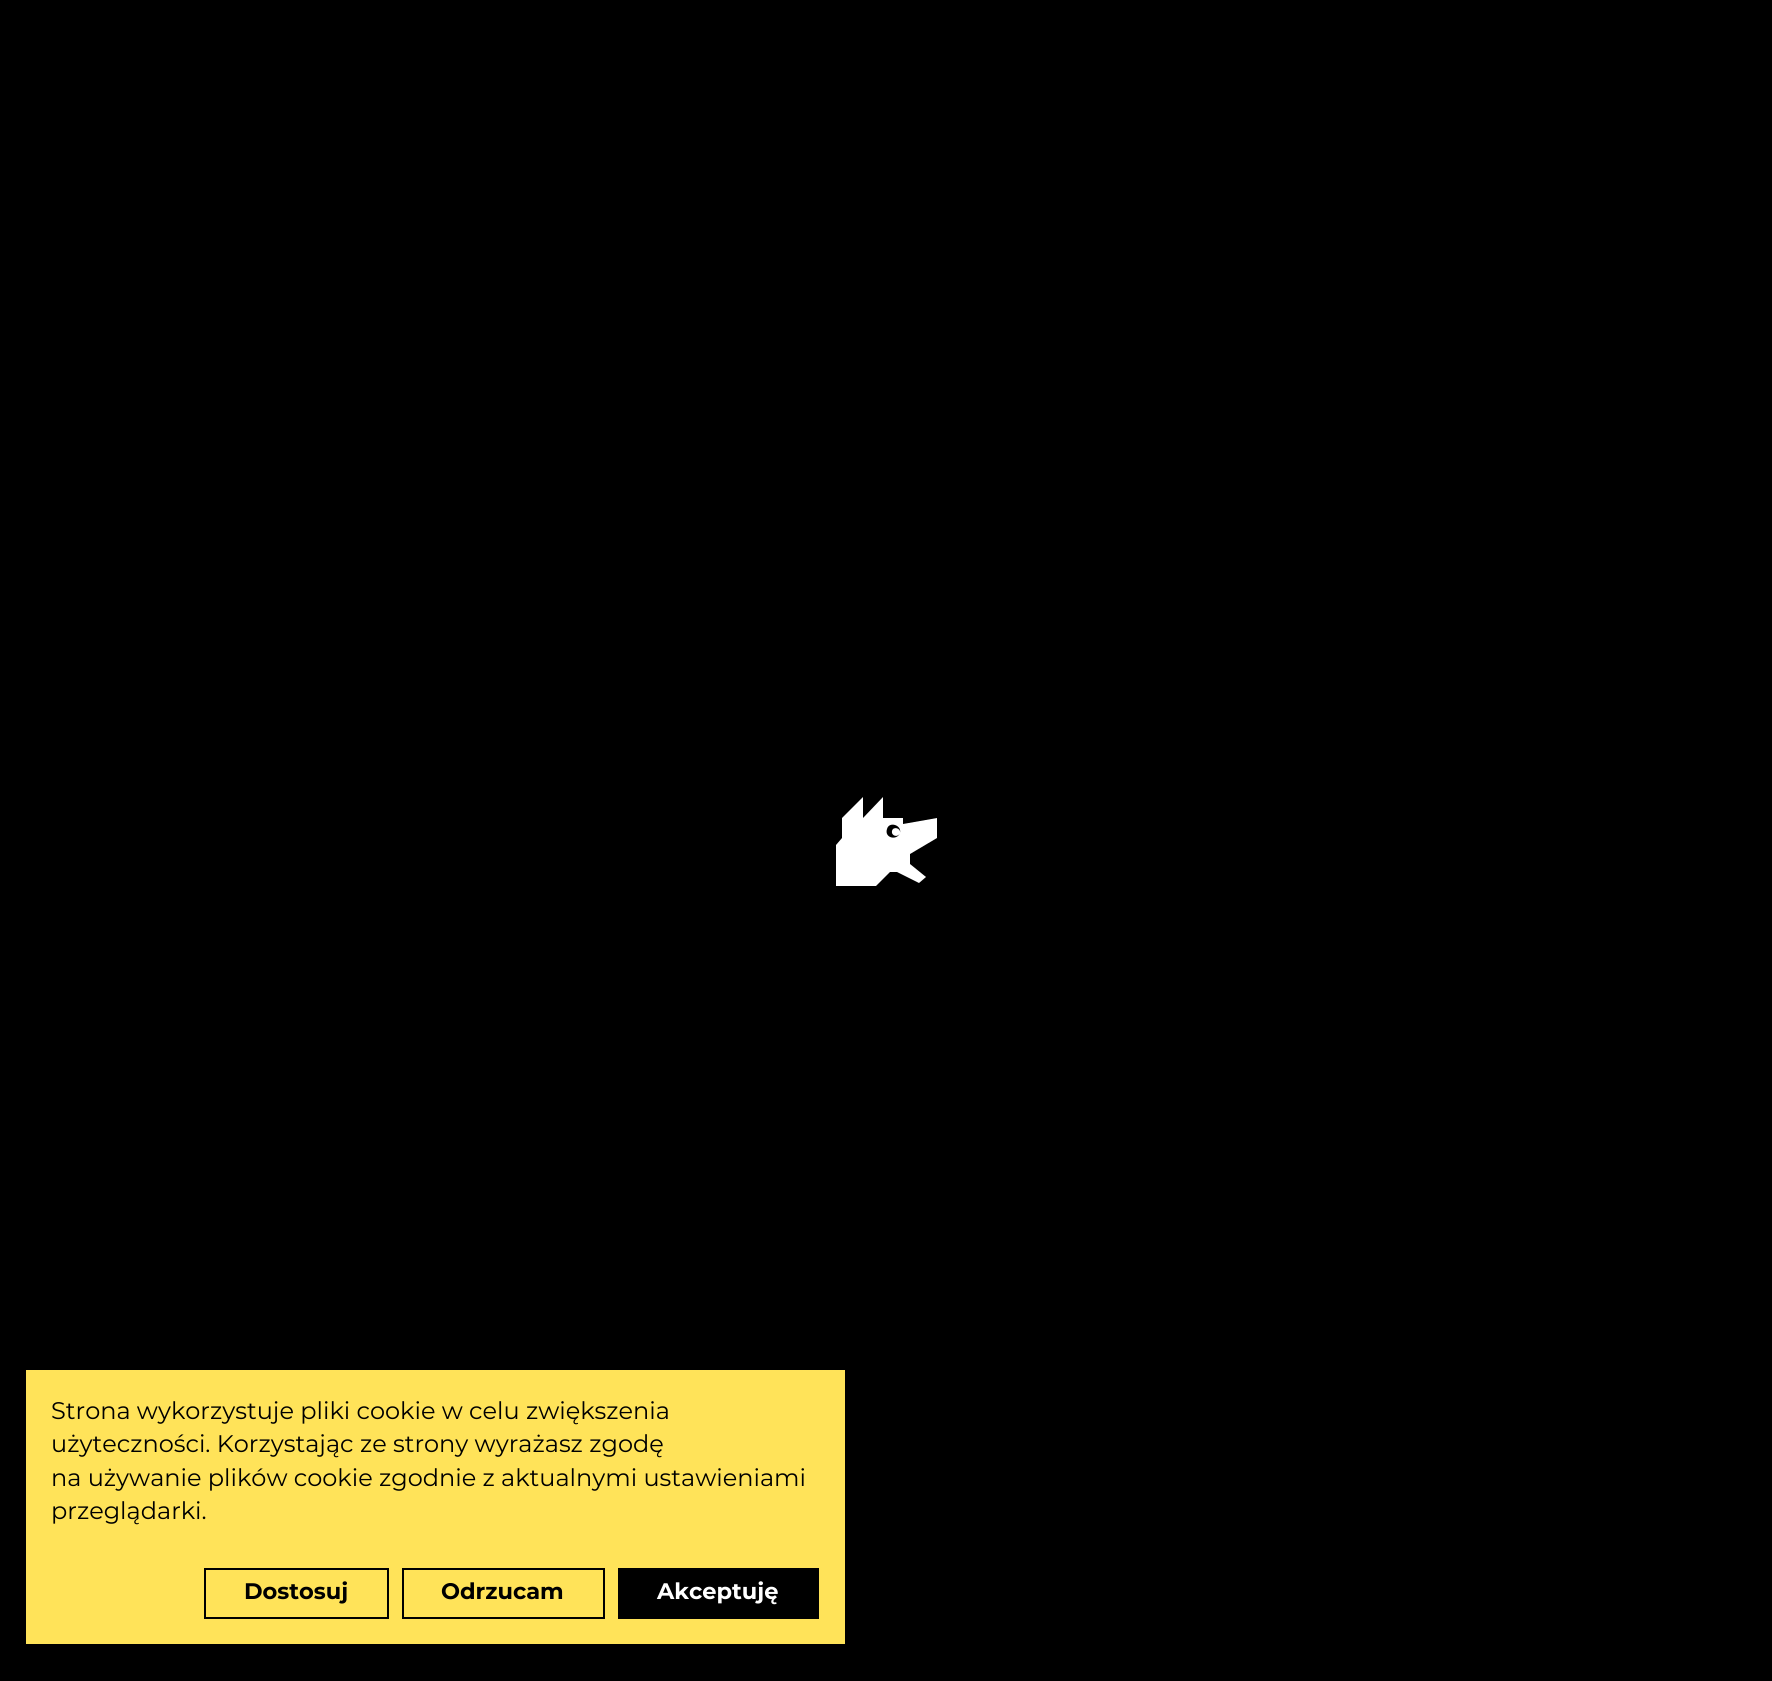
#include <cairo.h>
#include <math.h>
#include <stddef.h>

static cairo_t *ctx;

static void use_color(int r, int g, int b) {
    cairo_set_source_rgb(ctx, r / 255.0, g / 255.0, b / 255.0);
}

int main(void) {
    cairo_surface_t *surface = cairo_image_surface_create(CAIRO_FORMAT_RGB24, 1772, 1681);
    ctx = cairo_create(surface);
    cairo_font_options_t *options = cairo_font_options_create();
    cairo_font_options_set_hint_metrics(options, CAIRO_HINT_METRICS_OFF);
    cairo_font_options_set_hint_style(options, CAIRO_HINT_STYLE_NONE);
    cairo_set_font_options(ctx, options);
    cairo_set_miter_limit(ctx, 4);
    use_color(0, 0, 0);
    cairo_paint(ctx);
    use_color(255, 255, 255);
    cairo_set_fill_rule(ctx, CAIRO_FILL_RULE_EVEN_ODD);
    cairo_new_path(ctx);
    cairo_move_to(ctx, 910, 864);
    cairo_line_to(ctx, 926, 877);
    cairo_line_to(ctx, 919, 883);
    cairo_line_to(ctx, 897, 872);
    cairo_line_to(ctx, 890, 872);
    cairo_line_to(ctx, 876, 886);
    cairo_line_to(ctx, 836, 886);
    cairo_line_to(ctx, 836, 845);
    cairo_line_to(ctx, 842, 838);
    cairo_line_to(ctx, 842, 818);
    cairo_line_to(ctx, 863, 797);
    cairo_line_to(ctx, 863, 818);
    cairo_line_to(ctx, 883, 797);
    cairo_line_to(ctx, 883, 818);
    cairo_line_to(ctx, 903, 818);
    cairo_line_to(ctx, 903, 824);
    cairo_line_to(ctx, 937, 818);
    cairo_line_to(ctx, 937, 838);
    cairo_line_to(ctx, 910, 854);
    cairo_close_path(ctx);
    cairo_move_to(ctx, 900, 833);
    cairo_curve_to(ctx, 902, 825, 889, 821, 887, 829);
    cairo_curve_to(ctx, 884, 838, 897, 841, 900, 833);
    cairo_curve_to(ctx, 898, 838, 891, 836, 892, 831);
    cairo_curve_to(ctx, 893, 826, 901, 828, 900, 833);
    cairo_close_path(ctx);
    cairo_fill(ctx);
    use_color(255, 227, 89);
    cairo_rectangle(ctx, 26, 1370, 819, 274);
    cairo_fill(ctx);
    cairo_select_font_face(ctx, "Montserrat", CAIRO_FONT_SLANT_NORMAL, CAIRO_FONT_WEIGHT_NORMAL);
    cairo_set_font_size(ctx, 24);
    use_color(0, 0, 0);
    cairo_move_to(ctx, 51, 1419);
    cairo_show_text(ctx, "Strona wykorzystuje pliki cookie w celu zwiększenia");
    cairo_move_to(ctx, 51, 1452);
    cairo_show_text(ctx, "użyteczności. Korzystając ze strony wyrażasz zgodę");
    cairo_move_to(ctx, 51, 1486);
    cairo_show_text(ctx, "na używanie plików cookie zgodnie z aktualnymi ustawieniami");
    cairo_move_to(ctx, 51, 1519);
    cairo_show_text(ctx, "przeglądarki.");
    cairo_rectangle(ctx, 205, 1569, 183, 49);
    cairo_stroke(ctx);
    cairo_select_font_face(ctx, "Montserrat", CAIRO_FONT_SLANT_NORMAL, CAIRO_FONT_WEIGHT_BOLD);
    cairo_set_font_size(ctx, 22.5);
    cairo_move_to(ctx, 244, 1599);
    cairo_show_text(ctx, "Dostosuj");
    cairo_rectangle(ctx, 403, 1569, 201, 49);
    cairo_stroke(ctx);
    cairo_move_to(ctx, 441, 1599);
    cairo_show_text(ctx, "Odrzucam");
    cairo_rectangle(ctx, 618, 1568, 201, 51);
    cairo_fill(ctx);
    use_color(255, 255, 255);
    cairo_move_to(ctx, 657, 1599);
    cairo_show_text(ctx, "Akceptuję");
    cairo_surface_write_to_png(surface, "result.png");
    cairo_font_options_destroy(options);
    cairo_destroy(ctx);
    cairo_surface_destroy(surface);
    return 0;
}
